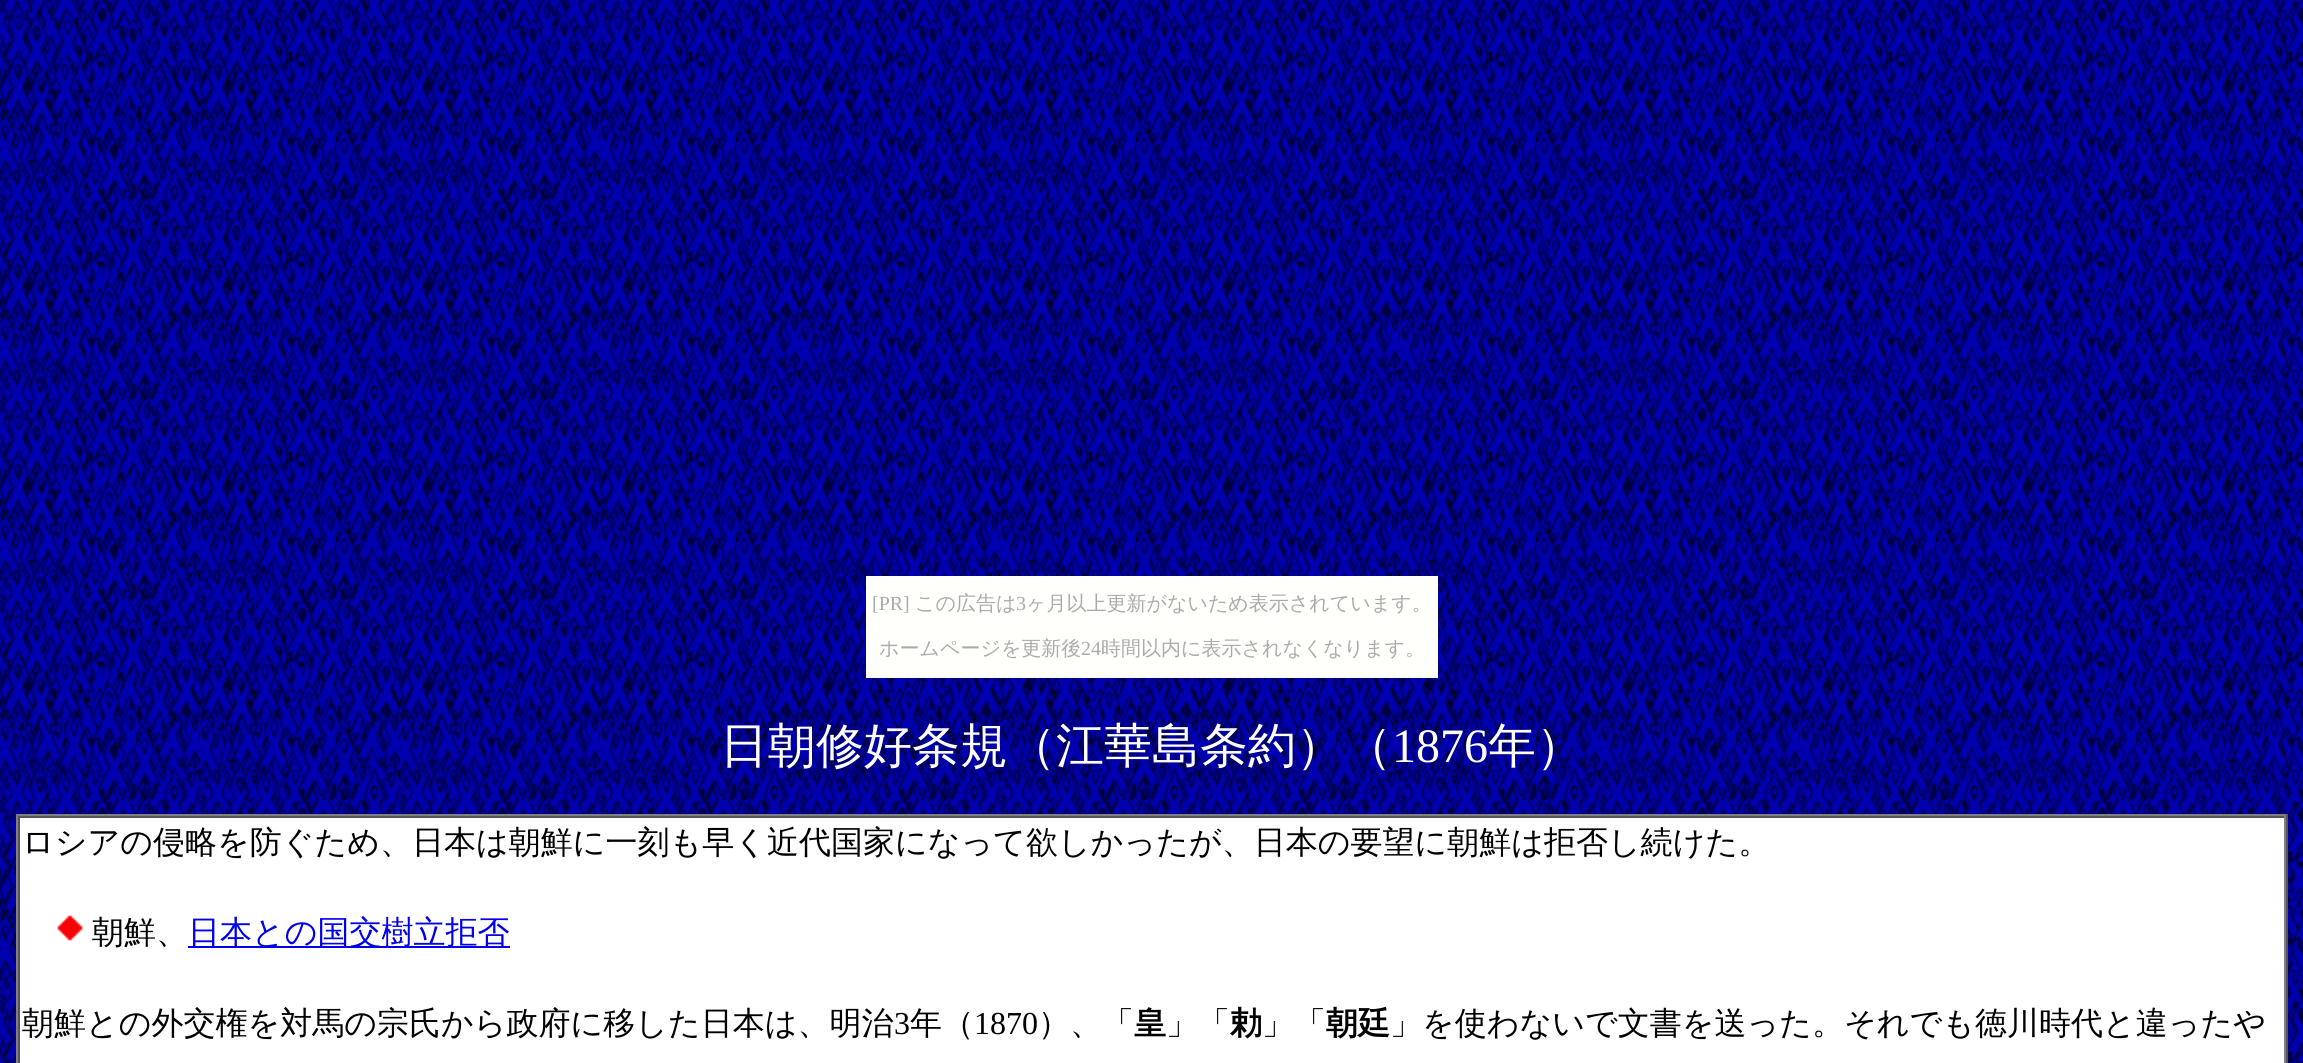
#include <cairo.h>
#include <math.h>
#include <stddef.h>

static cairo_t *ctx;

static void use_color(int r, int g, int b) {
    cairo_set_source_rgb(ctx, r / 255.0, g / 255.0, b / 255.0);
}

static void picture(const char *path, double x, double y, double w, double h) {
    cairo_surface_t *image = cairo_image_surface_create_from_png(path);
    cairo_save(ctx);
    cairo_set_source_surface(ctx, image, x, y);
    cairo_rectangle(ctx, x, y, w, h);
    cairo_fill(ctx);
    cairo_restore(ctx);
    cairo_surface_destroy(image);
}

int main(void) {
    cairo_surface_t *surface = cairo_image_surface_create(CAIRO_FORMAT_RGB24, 2303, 1063);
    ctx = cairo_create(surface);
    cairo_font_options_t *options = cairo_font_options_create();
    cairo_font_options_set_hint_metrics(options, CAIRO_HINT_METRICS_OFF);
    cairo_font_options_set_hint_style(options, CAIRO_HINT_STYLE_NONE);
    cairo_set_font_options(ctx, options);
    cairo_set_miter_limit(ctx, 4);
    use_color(255, 255, 255);
    cairo_paint(ctx);
    picture("img1.png", 0, 0, 2303, 1063);
    use_color(255, 255, 252);
    cairo_rectangle(ctx, 866, 576, 572, 102);
    cairo_fill(ctx);
    cairo_select_font_face(ctx, "Liberation Serif", CAIRO_FONT_SLANT_NORMAL, CAIRO_FONT_WEIGHT_NORMAL);
    cairo_set_font_size(ctx, 20);
    use_color(170, 170, 170);
    cairo_move_to(ctx, 872, 610);
    cairo_show_text(ctx, "[PR]");
    cairo_select_font_face(ctx, "WenQuanYi Zen Hei Medium", CAIRO_FONT_SLANT_NORMAL, CAIRO_FONT_WEIGHT_NORMAL);
    cairo_move_to(ctx, 915, 610);
    cairo_show_text(ctx, "この広告は");
    cairo_select_font_face(ctx, "Liberation Serif", CAIRO_FONT_SLANT_NORMAL, CAIRO_FONT_WEIGHT_NORMAL);
    cairo_move_to(ctx, 1016, 610);
    cairo_show_text(ctx, "3");
    cairo_select_font_face(ctx, "WenQuanYi Zen Hei Medium", CAIRO_FONT_SLANT_NORMAL, CAIRO_FONT_WEIGHT_NORMAL);
    cairo_move_to(ctx, 1026, 610);
    cairo_show_text(ctx, "ヶ月以上更新がないため表示されています。");
    cairo_move_to(ctx, 879, 655);
    cairo_show_text(ctx, "ホームページを更新後");
    cairo_select_font_face(ctx, "Liberation Serif", CAIRO_FONT_SLANT_NORMAL, CAIRO_FONT_WEIGHT_NORMAL);
    cairo_move_to(ctx, 1081, 655);
    cairo_show_text(ctx, "24");
    cairo_select_font_face(ctx, "WenQuanYi Zen Hei Medium", CAIRO_FONT_SLANT_NORMAL, CAIRO_FONT_WEIGHT_NORMAL);
    cairo_move_to(ctx, 1101, 655);
    cairo_show_text(ctx, "時間以内に表示されなくなります。");
    cairo_set_font_size(ctx, 48);
    use_color(255, 255, 255);
    cairo_move_to(ctx, 720, 762);
    cairo_show_text(ctx, "日朝修好条規（江華島条約）（");
    cairo_select_font_face(ctx, "Liberation Serif", CAIRO_FONT_SLANT_NORMAL, CAIRO_FONT_WEIGHT_NORMAL);
    cairo_move_to(ctx, 1392, 762);
    cairo_show_text(ctx, "1876");
    cairo_select_font_face(ctx, "WenQuanYi Zen Hei Medium", CAIRO_FONT_SLANT_NORMAL, CAIRO_FONT_WEIGHT_NORMAL);
    cairo_move_to(ctx, 1488, 762);
    cairo_show_text(ctx, "年）");
    cairo_rectangle(ctx, 20, 818, 2264, 245);
    cairo_fill(ctx);
    use_color(128, 128, 128);
    cairo_rectangle(ctx, 16, 814, 2272, 2);
    cairo_fill(ctx);
    use_color(85, 85, 85);
    cairo_rectangle(ctx, 2286, 814, 2, 249);
    cairo_fill(ctx);
    use_color(128, 128, 128);
    cairo_rectangle(ctx, 16, 814, 2, 249);
    cairo_fill(ctx);
    use_color(85, 85, 85);
    cairo_rectangle(ctx, 18, 816, 2268, 2);
    cairo_fill(ctx);
    use_color(128, 128, 128);
    cairo_rectangle(ctx, 2284, 816, 2, 247);
    cairo_fill(ctx);
    use_color(85, 85, 85);
    cairo_rectangle(ctx, 18, 816, 2, 247);
    cairo_fill(ctx);
    cairo_set_font_size(ctx, 32);
    use_color(0, 0, 0);
    cairo_move_to(ctx, 22, 853);
    cairo_show_text(ctx, "ロシアの侵略を防ぐため、日本は朝鮮に一刻も早く近代国家になって欲しかったが、日本の要望に朝鮮は拒否し続けた。");
    picture("img2.png", 57, 915, 26, 26);
    cairo_move_to(ctx, 92, 943);
    cairo_show_text(ctx, "朝鮮、");
    use_color(0, 0, 238);
    cairo_rectangle(ctx, 188, 946, 322, 2);
    cairo_fill(ctx);
    cairo_move_to(ctx, 188, 943);
    cairo_show_text(ctx, "日本との国交樹立拒否");
    use_color(0, 0, 0);
    cairo_move_to(ctx, 22, 1034);
    cairo_show_text(ctx, "朝鮮との外交権を対馬の宗氏から政府に移した日本は、明治");
    cairo_select_font_face(ctx, "Liberation Serif", CAIRO_FONT_SLANT_NORMAL, CAIRO_FONT_WEIGHT_NORMAL);
    cairo_move_to(ctx, 894, 1034);
    cairo_show_text(ctx, "3");
    cairo_select_font_face(ctx, "WenQuanYi Zen Hei Medium", CAIRO_FONT_SLANT_NORMAL, CAIRO_FONT_WEIGHT_NORMAL);
    cairo_move_to(ctx, 910, 1034);
    cairo_show_text(ctx, "年（");
    cairo_select_font_face(ctx, "Liberation Serif", CAIRO_FONT_SLANT_NORMAL, CAIRO_FONT_WEIGHT_NORMAL);
    cairo_move_to(ctx, 974, 1034);
    cairo_show_text(ctx, "1870");
    cairo_select_font_face(ctx, "WenQuanYi Zen Hei Medium", CAIRO_FONT_SLANT_NORMAL, CAIRO_FONT_WEIGHT_NORMAL);
    cairo_move_to(ctx, 1038, 1034);
    cairo_show_text(ctx, "）、「");
    cairo_select_font_face(ctx, "WenQuanYi Zen Hei", CAIRO_FONT_SLANT_NORMAL, CAIRO_FONT_WEIGHT_BOLD);
    cairo_move_to(ctx, 1134, 1034);
    cairo_show_text(ctx, "皇");
    cairo_select_font_face(ctx, "WenQuanYi Zen Hei Medium", CAIRO_FONT_SLANT_NORMAL, CAIRO_FONT_WEIGHT_NORMAL);
    cairo_move_to(ctx, 1166, 1034);
    cairo_show_text(ctx, "」「");
    cairo_select_font_face(ctx, "WenQuanYi Zen Hei", CAIRO_FONT_SLANT_NORMAL, CAIRO_FONT_WEIGHT_BOLD);
    cairo_move_to(ctx, 1230, 1034);
    cairo_show_text(ctx, "勅");
    cairo_select_font_face(ctx, "WenQuanYi Zen Hei Medium", CAIRO_FONT_SLANT_NORMAL, CAIRO_FONT_WEIGHT_NORMAL);
    cairo_move_to(ctx, 1262, 1034);
    cairo_show_text(ctx, "」「");
    cairo_select_font_face(ctx, "WenQuanYi Zen Hei", CAIRO_FONT_SLANT_NORMAL, CAIRO_FONT_WEIGHT_BOLD);
    cairo_move_to(ctx, 1326, 1034);
    cairo_show_text(ctx, "朝廷");
    cairo_select_font_face(ctx, "WenQuanYi Zen Hei Medium", CAIRO_FONT_SLANT_NORMAL, CAIRO_FONT_WEIGHT_NORMAL);
    cairo_move_to(ctx, 1390, 1034);
    cairo_show_text(ctx, "」を使わないで文書を送った。それでも徳川時代と違ったや");
    cairo_surface_write_to_png(surface, "result.png");
    cairo_font_options_destroy(options);
    cairo_destroy(ctx);
    cairo_surface_destroy(surface);
    return 0;
}
